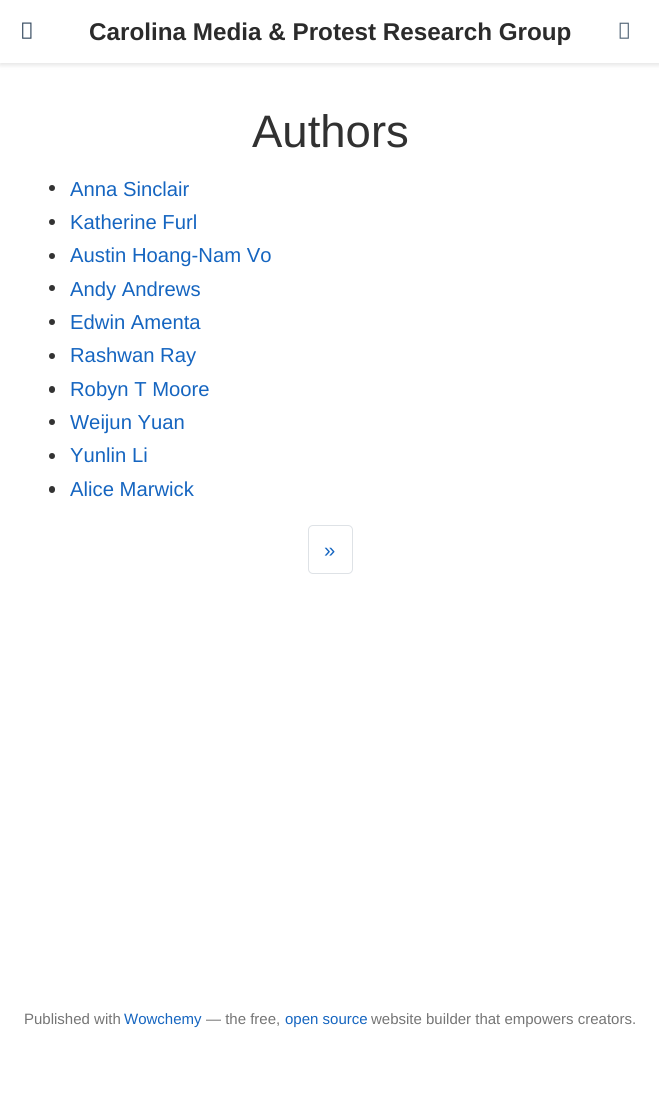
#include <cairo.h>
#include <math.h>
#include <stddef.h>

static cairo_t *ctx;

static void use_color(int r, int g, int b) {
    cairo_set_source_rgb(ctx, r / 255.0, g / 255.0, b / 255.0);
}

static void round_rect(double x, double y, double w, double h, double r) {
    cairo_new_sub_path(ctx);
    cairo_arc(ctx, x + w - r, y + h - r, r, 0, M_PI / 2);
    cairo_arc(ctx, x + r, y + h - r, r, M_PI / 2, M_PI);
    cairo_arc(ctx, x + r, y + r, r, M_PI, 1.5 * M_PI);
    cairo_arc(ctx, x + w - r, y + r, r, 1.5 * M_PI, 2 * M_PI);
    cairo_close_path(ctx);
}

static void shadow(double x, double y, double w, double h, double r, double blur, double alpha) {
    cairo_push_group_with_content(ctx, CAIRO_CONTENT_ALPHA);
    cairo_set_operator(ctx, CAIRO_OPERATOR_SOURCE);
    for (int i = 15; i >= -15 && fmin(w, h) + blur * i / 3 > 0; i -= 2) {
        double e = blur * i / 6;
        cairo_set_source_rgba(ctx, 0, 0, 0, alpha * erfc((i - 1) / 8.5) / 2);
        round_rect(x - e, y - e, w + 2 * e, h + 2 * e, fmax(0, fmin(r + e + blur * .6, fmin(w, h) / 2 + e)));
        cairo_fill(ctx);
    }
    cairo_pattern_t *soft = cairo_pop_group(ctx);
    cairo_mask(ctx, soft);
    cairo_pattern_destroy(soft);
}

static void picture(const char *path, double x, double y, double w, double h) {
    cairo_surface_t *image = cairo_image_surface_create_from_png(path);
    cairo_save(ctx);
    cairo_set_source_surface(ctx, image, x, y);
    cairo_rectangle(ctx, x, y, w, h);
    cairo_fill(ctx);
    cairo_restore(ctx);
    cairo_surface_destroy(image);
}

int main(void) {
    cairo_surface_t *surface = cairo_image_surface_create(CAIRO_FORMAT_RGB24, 659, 1094);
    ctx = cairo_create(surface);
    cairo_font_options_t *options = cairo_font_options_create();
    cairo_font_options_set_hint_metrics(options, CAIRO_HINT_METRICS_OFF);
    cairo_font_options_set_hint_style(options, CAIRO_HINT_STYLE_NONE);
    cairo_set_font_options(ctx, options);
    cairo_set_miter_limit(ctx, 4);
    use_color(255, 255, 255);
    cairo_paint(ctx);
    use_color(0, 0, 0);
    shadow(0, 3, 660, 62, 0, 2.5, 0.11);
    use_color(255, 255, 255);
    cairo_rectangle(ctx, 0, 0, 659, 63);
    cairo_fill(ctx);
    picture("img1.png", 22, 22, 10, 17);
    cairo_select_font_face(ctx, "Liberation Sans", CAIRO_FONT_SLANT_NORMAL, CAIRO_FONT_WEIGHT_BOLD);
    cairo_set_font_size(ctx, 24.25);
    use_color(43, 43, 43);
    cairo_move_to(ctx, 89, 40);
    cairo_show_text(ctx, "Carolina Media & Protest Research Group");
    picture("img2.png", 619, 22, 10, 17);
    cairo_select_font_face(ctx, "Liberation Sans", CAIRO_FONT_SLANT_NORMAL, CAIRO_FONT_WEIGHT_NORMAL);
    cairo_set_font_size(ctx, 45.5);
    use_color(49, 49, 49);
    cairo_move_to(ctx, 252, 147);
    cairo_show_text(ctx, "Authors");
    use_color(51, 51, 51);
    cairo_new_path(ctx);
    cairo_arc(ctx, 52, 188, 3, 0, 2 * M_PI);
    cairo_fill(ctx);
    cairo_set_font_size(ctx, 20.25);
    use_color(21, 101, 192);
    cairo_move_to(ctx, 70, 196);
    cairo_show_text(ctx, "Anna Sinclair");
    use_color(51, 51, 51);
    cairo_new_path(ctx);
    cairo_arc(ctx, 52, 222, 3, 0, 2 * M_PI);
    cairo_fill(ctx);
    use_color(21, 101, 192);
    cairo_move_to(ctx, 70, 229);
    cairo_show_text(ctx, "Katherine Furl");
    use_color(51, 51, 51);
    cairo_new_path(ctx);
    cairo_arc(ctx, 52, 256, 3, 0, 2 * M_PI);
    cairo_fill(ctx);
    use_color(21, 101, 192);
    cairo_move_to(ctx, 70, 262);
    cairo_show_text(ctx, "Austin Hoang-Nam Vo");
    use_color(51, 51, 51);
    cairo_new_path(ctx);
    cairo_arc(ctx, 52, 288, 3, 0, 2 * M_PI);
    cairo_fill(ctx);
    use_color(21, 101, 192);
    cairo_move_to(ctx, 70, 296);
    cairo_show_text(ctx, "Andy Andrews");
    use_color(51, 51, 51);
    cairo_new_path(ctx);
    cairo_arc(ctx, 52, 322, 3, 0, 2 * M_PI);
    cairo_fill(ctx);
    use_color(21, 101, 192);
    cairo_move_to(ctx, 70, 329);
    cairo_show_text(ctx, "Edwin Amenta");
    use_color(51, 51, 51);
    cairo_new_path(ctx);
    cairo_arc(ctx, 52, 356, 3, 0, 2 * M_PI);
    cairo_fill(ctx);
    use_color(21, 101, 192);
    cairo_move_to(ctx, 70, 362);
    cairo_show_text(ctx, "Rashwan Ray");
    use_color(51, 51, 51);
    round_rect(49, 386, 6, 7, 3);
    cairo_fill(ctx);
    use_color(21, 101, 192);
    cairo_move_to(ctx, 70, 396);
    cairo_show_text(ctx, "Robyn T Moore");
    use_color(51, 51, 51);
    cairo_new_path(ctx);
    cairo_arc(ctx, 52, 422, 3, 0, 2 * M_PI);
    cairo_fill(ctx);
    use_color(21, 101, 192);
    cairo_move_to(ctx, 70, 429);
    cairo_show_text(ctx, "Weijun Yuan");
    use_color(51, 51, 51);
    cairo_new_path(ctx);
    cairo_arc(ctx, 52, 456, 3, 0, 2 * M_PI);
    cairo_fill(ctx);
    use_color(21, 101, 192);
    cairo_move_to(ctx, 70, 462);
    cairo_show_text(ctx, "Yunlin Li");
    use_color(51, 51, 51);
    round_rect(49, 486, 6, 7, 3);
    cairo_fill(ctx);
    use_color(21, 101, 192);
    cairo_move_to(ctx, 70, 496);
    cairo_show_text(ctx, "Alice Marwick");
    round_rect(308.5, 525.5, 44, 48, 4.5);
    use_color(222, 226, 230);
    cairo_set_line_width(ctx, 1);
    cairo_stroke(ctx);
    use_color(21, 101, 192);
    cairo_move_to(ctx, 324, 557);
    cairo_show_text(ctx, "»");
    cairo_set_font_size(ctx, 15);
    use_color(117, 117, 117);
    cairo_move_to(ctx, 24, 1024);
    cairo_show_text(ctx, "Published with");
    use_color(21, 101, 192);
    cairo_move_to(ctx, 124, 1024);
    cairo_show_text(ctx, "Wowchemy");
    use_color(117, 117, 117);
    cairo_move_to(ctx, 206, 1024);
    cairo_show_text(ctx, "— the free,");
    use_color(21, 101, 192);
    cairo_move_to(ctx, 285, 1024);
    cairo_show_text(ctx, "open source");
    use_color(117, 117, 117);
    cairo_move_to(ctx, 371, 1024);
    cairo_show_text(ctx, "website builder that empowers creators.");
    cairo_surface_write_to_png(surface, "result.png");
    cairo_font_options_destroy(options);
    cairo_destroy(ctx);
    cairo_surface_destroy(surface);
    return 0;
}
